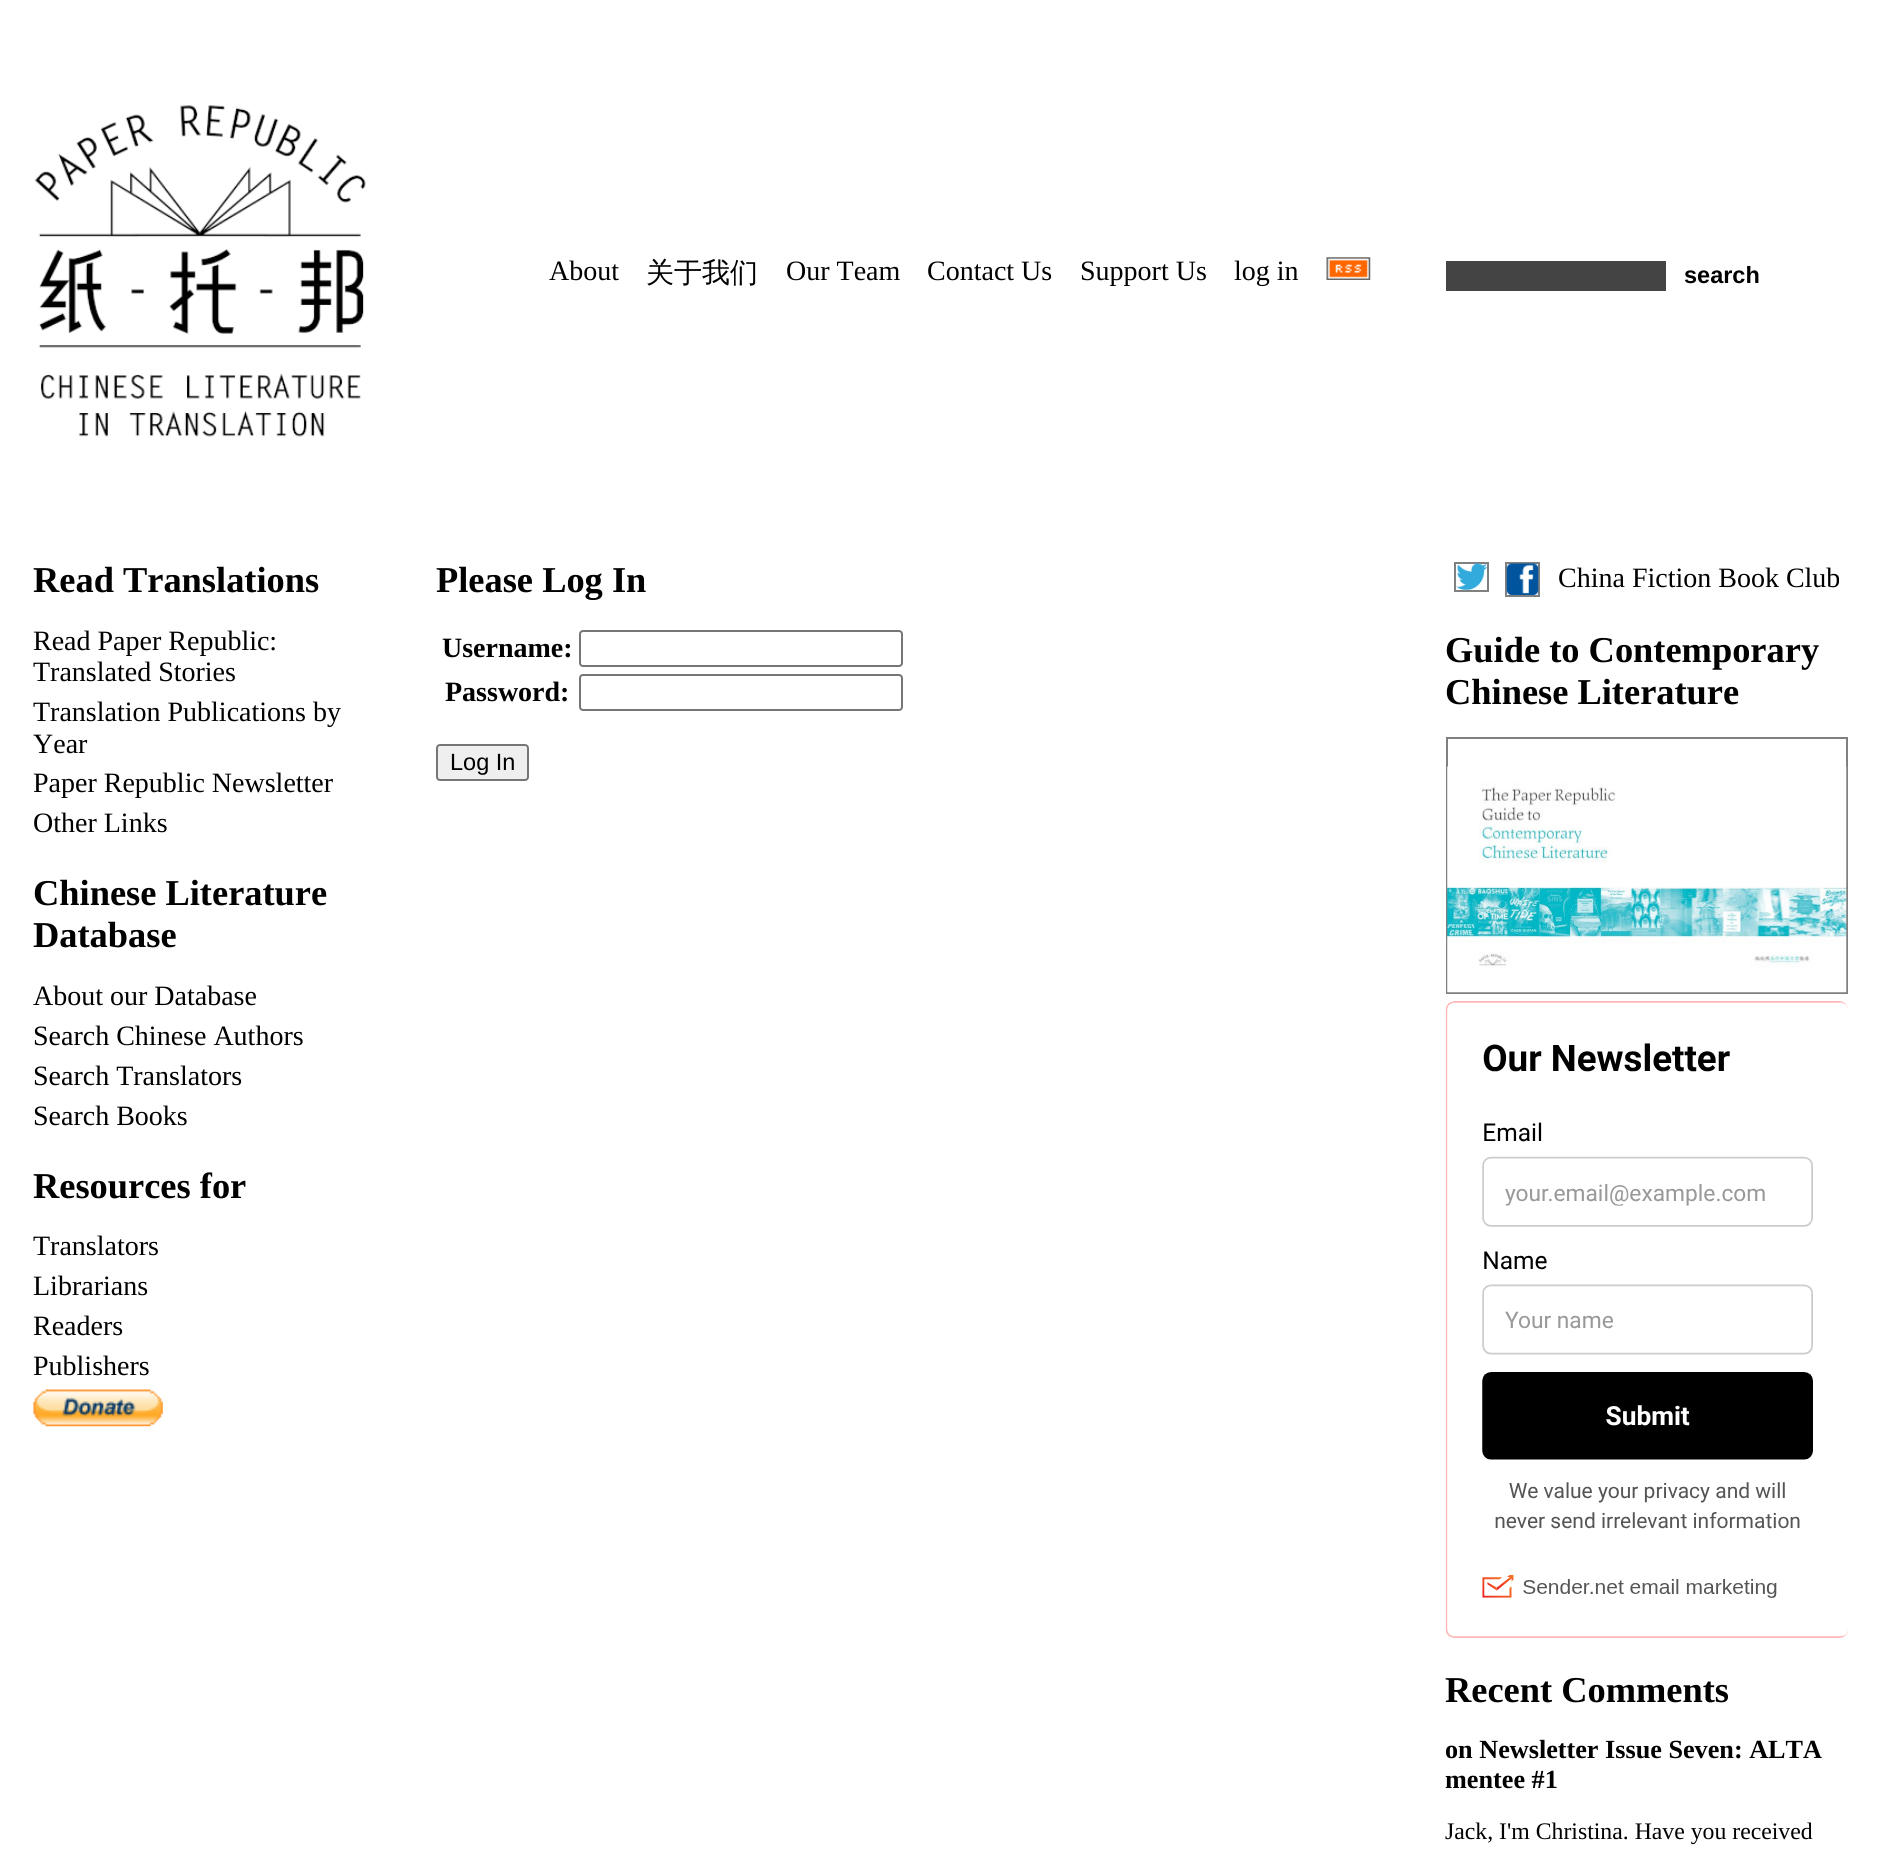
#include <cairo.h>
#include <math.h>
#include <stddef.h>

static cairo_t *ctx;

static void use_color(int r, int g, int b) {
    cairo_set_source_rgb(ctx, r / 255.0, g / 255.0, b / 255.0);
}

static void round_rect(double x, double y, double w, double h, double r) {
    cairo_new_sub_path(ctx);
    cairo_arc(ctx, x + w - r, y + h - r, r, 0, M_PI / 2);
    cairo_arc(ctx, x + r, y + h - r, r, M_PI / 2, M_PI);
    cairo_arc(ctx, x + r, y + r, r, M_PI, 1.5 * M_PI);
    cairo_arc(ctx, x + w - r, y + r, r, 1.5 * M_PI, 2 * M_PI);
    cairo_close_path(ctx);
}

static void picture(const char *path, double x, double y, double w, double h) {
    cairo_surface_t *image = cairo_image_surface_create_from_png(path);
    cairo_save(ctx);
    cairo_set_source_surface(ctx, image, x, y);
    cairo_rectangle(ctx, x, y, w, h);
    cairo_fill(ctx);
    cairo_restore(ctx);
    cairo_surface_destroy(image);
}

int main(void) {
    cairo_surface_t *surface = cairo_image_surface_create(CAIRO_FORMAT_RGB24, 1881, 1858);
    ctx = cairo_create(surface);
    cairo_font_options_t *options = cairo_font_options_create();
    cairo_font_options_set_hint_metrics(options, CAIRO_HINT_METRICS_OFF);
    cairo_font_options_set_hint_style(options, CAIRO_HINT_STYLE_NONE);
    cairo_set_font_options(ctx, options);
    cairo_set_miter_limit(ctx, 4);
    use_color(255, 255, 255);
    cairo_paint(ctx);
    picture("img1.png", 34, 105, 332, 332);
    cairo_select_font_face(ctx, "Liberation Serif", CAIRO_FONT_SLANT_NORMAL, CAIRO_FONT_WEIGHT_NORMAL);
    cairo_set_font_size(ctx, 28);
    use_color(0, 0, 0);
    cairo_move_to(ctx, 549, 280);
    cairo_show_text(ctx, "About");
    cairo_select_font_face(ctx, "WenQuanYi Zen Hei Medium", CAIRO_FONT_SLANT_NORMAL, CAIRO_FONT_WEIGHT_NORMAL);
    cairo_move_to(ctx, 646, 282);
    cairo_show_text(ctx, "关于我们");
    cairo_select_font_face(ctx, "Liberation Serif", CAIRO_FONT_SLANT_NORMAL, CAIRO_FONT_WEIGHT_NORMAL);
    cairo_move_to(ctx, 786, 280);
    cairo_show_text(ctx, "Our Team");
    cairo_move_to(ctx, 927, 280);
    cairo_show_text(ctx, "Contact Us");
    cairo_move_to(ctx, 1080, 280);
    cairo_show_text(ctx, "Support Us");
    cairo_move_to(ctx, 1234, 280);
    cairo_show_text(ctx, "log in");
    picture("img2.png", 1326, 257, 45, 23);
    use_color(68, 68, 68);
    cairo_rectangle(ctx, 1446, 261, 220, 30);
    cairo_fill(ctx);
    cairo_select_font_face(ctx, "Liberation Sans", CAIRO_FONT_SLANT_NORMAL, CAIRO_FONT_WEIGHT_BOLD);
    cairo_set_font_size(ctx, 23.5);
    use_color(0, 0, 0);
    cairo_move_to(ctx, 1684, 283);
    cairo_show_text(ctx, "search");
    cairo_select_font_face(ctx, "Liberation Serif", CAIRO_FONT_SLANT_NORMAL, CAIRO_FONT_WEIGHT_BOLD);
    cairo_set_font_size(ctx, 36.4);
    cairo_move_to(ctx, 33, 592);
    cairo_show_text(ctx, "Read Translations");
    cairo_select_font_face(ctx, "Liberation Serif", CAIRO_FONT_SLANT_NORMAL, CAIRO_FONT_WEIGHT_NORMAL);
    cairo_set_font_size(ctx, 28);
    cairo_move_to(ctx, 33, 650);
    cairo_show_text(ctx, "Read Paper Republic:");
    cairo_move_to(ctx, 33, 681);
    cairo_show_text(ctx, "Translated Stories");
    cairo_move_to(ctx, 33, 721);
    cairo_show_text(ctx, "Translation Publications by");
    cairo_move_to(ctx, 33, 753);
    cairo_show_text(ctx, "Year");
    cairo_move_to(ctx, 33, 792);
    cairo_show_text(ctx, "Paper Republic Newsletter");
    cairo_move_to(ctx, 33, 832);
    cairo_show_text(ctx, "Other Links");
    cairo_select_font_face(ctx, "Liberation Serif", CAIRO_FONT_SLANT_NORMAL, CAIRO_FONT_WEIGHT_BOLD);
    cairo_set_font_size(ctx, 36.4);
    cairo_move_to(ctx, 33, 905);
    cairo_show_text(ctx, "Chinese Literature");
    cairo_move_to(ctx, 33, 947);
    cairo_show_text(ctx, "Database");
    cairo_select_font_face(ctx, "Liberation Serif", CAIRO_FONT_SLANT_NORMAL, CAIRO_FONT_WEIGHT_NORMAL);
    cairo_set_font_size(ctx, 28);
    cairo_move_to(ctx, 33, 1005);
    cairo_show_text(ctx, "About our Database");
    cairo_move_to(ctx, 33, 1045);
    cairo_show_text(ctx, "Search Chinese Authors");
    cairo_move_to(ctx, 33, 1085);
    cairo_show_text(ctx, "Search Translators");
    cairo_move_to(ctx, 33, 1125);
    cairo_show_text(ctx, "Search Books");
    cairo_select_font_face(ctx, "Liberation Serif", CAIRO_FONT_SLANT_NORMAL, CAIRO_FONT_WEIGHT_BOLD);
    cairo_set_font_size(ctx, 36.4);
    cairo_move_to(ctx, 33, 1198);
    cairo_show_text(ctx, "Resources for");
    cairo_select_font_face(ctx, "Liberation Serif", CAIRO_FONT_SLANT_NORMAL, CAIRO_FONT_WEIGHT_NORMAL);
    cairo_set_font_size(ctx, 28);
    cairo_move_to(ctx, 33, 1255);
    cairo_show_text(ctx, "Translators");
    cairo_move_to(ctx, 33, 1295);
    cairo_show_text(ctx, "Librarians");
    cairo_move_to(ctx, 33, 1335);
    cairo_show_text(ctx, "Readers");
    cairo_move_to(ctx, 33, 1375);
    cairo_show_text(ctx, "Publishers");
    picture("img3.png", 33, 1389, 130, 38);
    cairo_select_font_face(ctx, "Liberation Serif", CAIRO_FONT_SLANT_NORMAL, CAIRO_FONT_WEIGHT_BOLD);
    cairo_set_font_size(ctx, 36.4);
    cairo_move_to(ctx, 436, 592);
    cairo_show_text(ctx, "Please Log In");
    cairo_set_font_size(ctx, 28);
    cairo_move_to(ctx, 442, 657);
    cairo_show_text(ctx, "Username:");
    round_rect(580, 631, 322, 35, 3);
    use_color(118, 118, 118);
    cairo_stroke(ctx);
    use_color(0, 0, 0);
    cairo_move_to(ctx, 445, 701);
    cairo_show_text(ctx, "Password:");
    round_rect(580, 675, 322, 35, 3);
    use_color(118, 118, 118);
    cairo_stroke(ctx);
    use_color(239, 239, 239);
    round_rect(437, 745, 91, 35, 3);
    cairo_fill_preserve(ctx);
    use_color(118, 118, 118);
    cairo_stroke(ctx);
    cairo_select_font_face(ctx, "Liberation Sans", CAIRO_FONT_SLANT_NORMAL, CAIRO_FONT_WEIGHT_NORMAL);
    cairo_set_font_size(ctx, 23.5);
    use_color(0, 0, 0);
    cairo_move_to(ctx, 450, 770);
    cairo_show_text(ctx, "Log In");
    cairo_rectangle(ctx, 1455, 563, 33, 28);
    use_color(128, 128, 128);
    cairo_stroke(ctx);
    picture("img4.png", 1456, 563, 32, 27);
    cairo_rectangle(ctx, 1506, 563, 33, 33);
    cairo_stroke(ctx);
    picture("img5.png", 1506, 563, 33, 32);
    cairo_select_font_face(ctx, "Liberation Serif", CAIRO_FONT_SLANT_NORMAL, CAIRO_FONT_WEIGHT_NORMAL);
    cairo_set_font_size(ctx, 28);
    use_color(0, 0, 0);
    cairo_move_to(ctx, 1558, 587);
    cairo_show_text(ctx, "China Fiction Book Club");
    cairo_select_font_face(ctx, "Liberation Serif", CAIRO_FONT_SLANT_NORMAL, CAIRO_FONT_WEIGHT_BOLD);
    cairo_set_font_size(ctx, 36.4);
    cairo_move_to(ctx, 1445, 662);
    cairo_show_text(ctx, "Guide to Contemporary");
    cairo_move_to(ctx, 1445, 704);
    cairo_show_text(ctx, "Chinese Literature");
    cairo_rectangle(ctx, 1447, 738, 400, 255);
    use_color(128, 128, 128);
    cairo_stroke(ctx);
    picture("img6.png", 1447, 766, 400, 227);
    picture("img7.png", 1445, 1001, 403, 637);
    use_color(0, 0, 0);
    cairo_move_to(ctx, 1445, 1702);
    cairo_show_text(ctx, "Recent Comments");
    cairo_set_font_size(ctx, 26.2);
    cairo_move_to(ctx, 1445, 1758);
    cairo_show_text(ctx, "on Newsletter Issue Seven: ALTA");
    cairo_move_to(ctx, 1445, 1788);
    cairo_show_text(ctx, "mentee #1");
    cairo_select_font_face(ctx, "Liberation Serif", CAIRO_FONT_SLANT_NORMAL, CAIRO_FONT_WEIGHT_NORMAL);
    cairo_set_font_size(ctx, 23.75);
    cairo_move_to(ctx, 1445, 1839);
    cairo_show_text(ctx, "Jack, I'm Christina. Have you received");
    cairo_surface_write_to_png(surface, "result.png");
    cairo_font_options_destroy(options);
    cairo_destroy(ctx);
    cairo_surface_destroy(surface);
    return 0;
}
